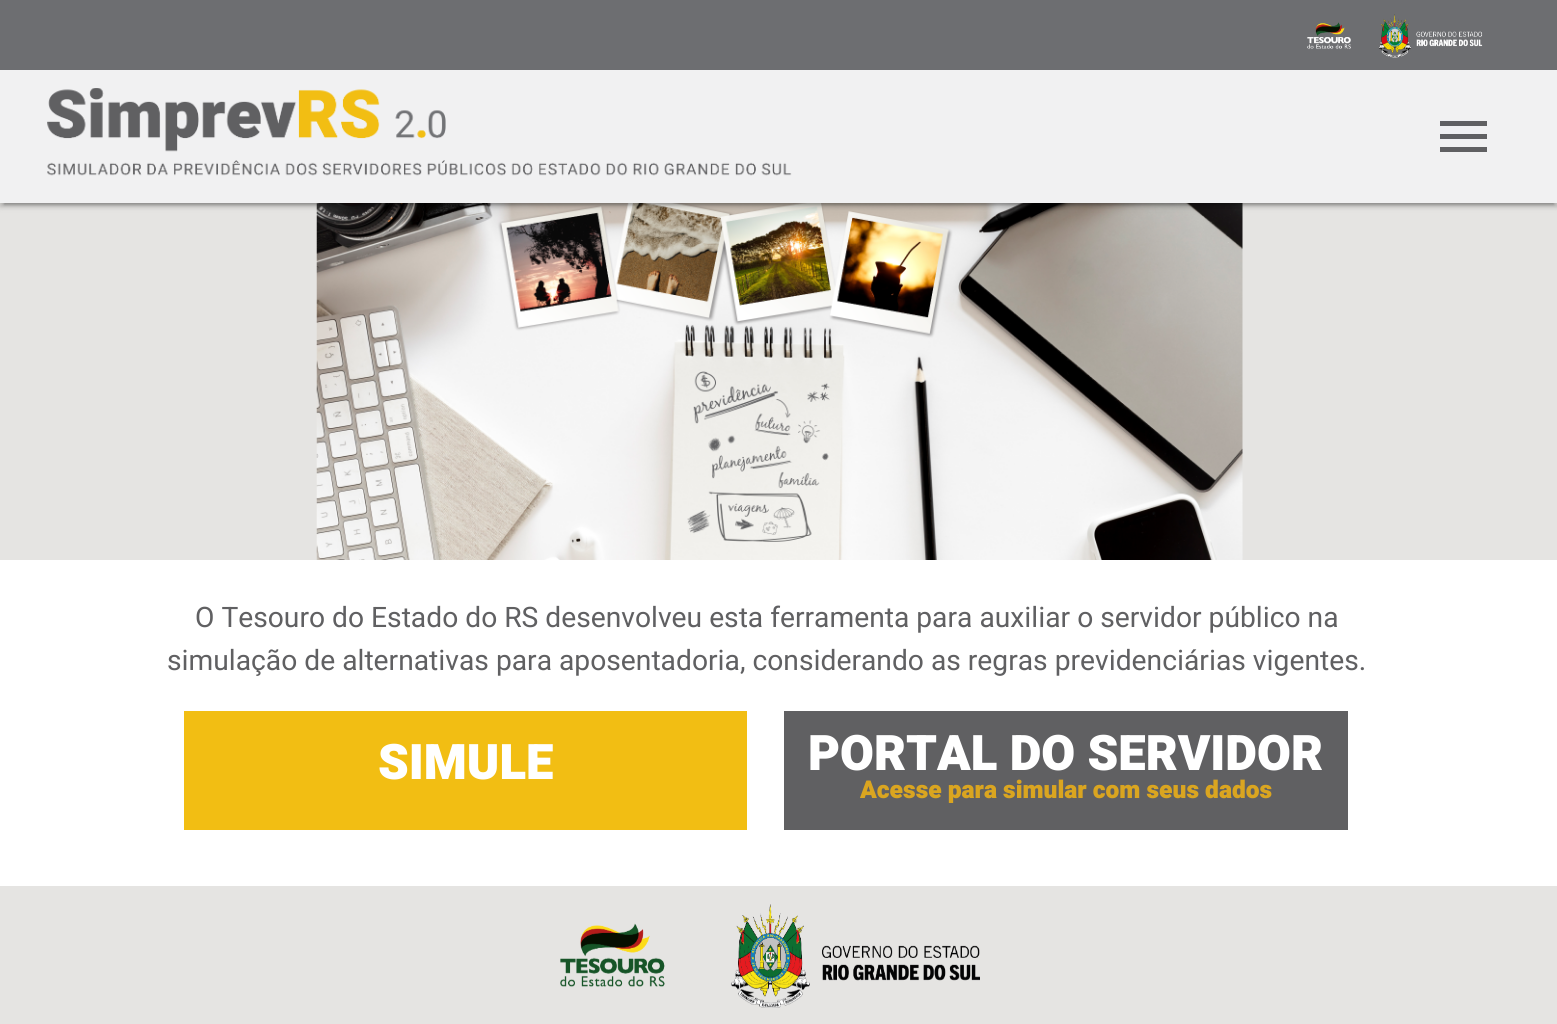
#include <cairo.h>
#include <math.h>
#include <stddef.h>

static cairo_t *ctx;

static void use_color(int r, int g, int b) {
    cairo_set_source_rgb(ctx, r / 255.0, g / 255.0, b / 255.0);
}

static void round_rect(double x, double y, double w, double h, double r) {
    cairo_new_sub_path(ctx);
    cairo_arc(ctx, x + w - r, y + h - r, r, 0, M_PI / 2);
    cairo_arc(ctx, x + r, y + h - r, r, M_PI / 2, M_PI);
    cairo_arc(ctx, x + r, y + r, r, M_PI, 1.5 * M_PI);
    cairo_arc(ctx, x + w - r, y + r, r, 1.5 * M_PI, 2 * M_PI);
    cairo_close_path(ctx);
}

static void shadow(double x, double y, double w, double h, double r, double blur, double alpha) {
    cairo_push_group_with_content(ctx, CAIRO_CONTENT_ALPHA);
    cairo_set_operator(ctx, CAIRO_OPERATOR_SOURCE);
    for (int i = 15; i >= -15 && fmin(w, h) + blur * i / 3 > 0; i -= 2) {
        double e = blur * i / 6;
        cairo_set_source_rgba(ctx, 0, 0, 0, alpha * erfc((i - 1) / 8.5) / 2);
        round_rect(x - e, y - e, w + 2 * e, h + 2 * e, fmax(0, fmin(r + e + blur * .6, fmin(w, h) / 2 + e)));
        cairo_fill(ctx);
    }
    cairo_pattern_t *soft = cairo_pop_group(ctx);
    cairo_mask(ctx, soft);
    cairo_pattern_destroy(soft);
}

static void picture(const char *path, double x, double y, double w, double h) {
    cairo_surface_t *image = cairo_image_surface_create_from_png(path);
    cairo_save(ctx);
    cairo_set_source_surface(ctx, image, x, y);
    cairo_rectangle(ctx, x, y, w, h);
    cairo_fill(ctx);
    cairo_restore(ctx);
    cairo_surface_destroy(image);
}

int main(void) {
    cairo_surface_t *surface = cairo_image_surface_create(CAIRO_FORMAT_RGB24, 1557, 1024);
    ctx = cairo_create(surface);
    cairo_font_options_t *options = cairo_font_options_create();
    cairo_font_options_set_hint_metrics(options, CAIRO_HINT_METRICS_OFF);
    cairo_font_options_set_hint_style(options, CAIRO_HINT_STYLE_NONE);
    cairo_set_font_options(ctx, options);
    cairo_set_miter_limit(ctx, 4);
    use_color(229, 228, 226);
    cairo_paint(ctx);
    picture("img3.png", 316, 203, 927, 357);
    use_color(0, 0, 0);
    shadow(4, 9, 1550, 196, 0, 1, 0.2);
    shadow(0, 2, 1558, 203, 0, 4.5, 0.12);
    shadow(0, 4, 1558, 203, 0, 2, 0.14);
    use_color(241, 241, 242);
    cairo_rectangle(ctx, 0, 70, 1557, 133);
    cairo_fill(ctx);
    use_color(109, 110, 113);
    cairo_rectangle(ctx, 0, 0, 1557, 70);
    cairo_fill(ctx);
    picture("img1.png", 1307, 14, 176, 44);
    picture("img2.png", 47, 88, 745, 88);
    use_color(96, 96, 98);
    cairo_new_path(ctx);
    cairo_move_to(ctx, 1440, 121);
    cairo_line_to(ctx, 1487, 121);
    cairo_line_to(ctx, 1487, 126);
    cairo_line_to(ctx, 1440, 126);
    cairo_close_path(ctx);
    cairo_move_to(ctx, 1440, 139);
    cairo_line_to(ctx, 1440, 134);
    cairo_line_to(ctx, 1487, 134);
    cairo_line_to(ctx, 1487, 139);
    cairo_close_path(ctx);
    cairo_move_to(ctx, 1440, 152);
    cairo_line_to(ctx, 1440, 147);
    cairo_line_to(ctx, 1487, 147);
    cairo_line_to(ctx, 1487, 152);
    cairo_close_path(ctx);
    cairo_fill(ctx);
    use_color(255, 255, 255);
    cairo_rectangle(ctx, 0, 560, 1557, 326);
    cairo_fill(ctx);
    cairo_select_font_face(ctx, "Heebo", CAIRO_FONT_SLANT_NORMAL, CAIRO_FONT_WEIGHT_NORMAL);
    cairo_set_font_size(ctx, 28.2);
    use_color(96, 96, 98);
    cairo_move_to(ctx, 195, 627);
    cairo_show_text(ctx, "O Tesouro do Estado do RS desenvolveu esta ferramenta para auxiliar o servidor público na");
    cairo_move_to(ctx, 167, 670);
    cairo_show_text(ctx, "simulação de alternativas para aposentadoria, considerando as regras previdenciárias vigentes.");
    use_color(242, 190, 19);
    cairo_rectangle(ctx, 184, 711, 563, 119);
    cairo_fill(ctx);
    cairo_select_font_face(ctx, "Heebo Black", CAIRO_FONT_SLANT_NORMAL, CAIRO_FONT_WEIGHT_NORMAL);
    cairo_set_font_size(ctx, 49);
    use_color(255, 255, 255);
    cairo_move_to(ctx, 378, 779);
    cairo_show_text(ctx, "SIMULE");
    use_color(96, 96, 98);
    cairo_rectangle(ctx, 784, 711, 564, 119);
    cairo_fill(ctx);
    use_color(255, 255, 255);
    cairo_move_to(ctx, 808, 770);
    cairo_show_text(ctx, "PORTAL DO SERVIDOR");
    cairo_set_font_size(ctx, 24.5);
    use_color(218, 165, 32);
    cairo_move_to(ctx, 860, 798);
    cairo_show_text(ctx, "Acesse para simular com seus dados");
    picture("img4.png", 560, 904, 420, 104);
    cairo_surface_write_to_png(surface, "result.png");
    cairo_font_options_destroy(options);
    cairo_destroy(ctx);
    cairo_surface_destroy(surface);
    return 0;
}
